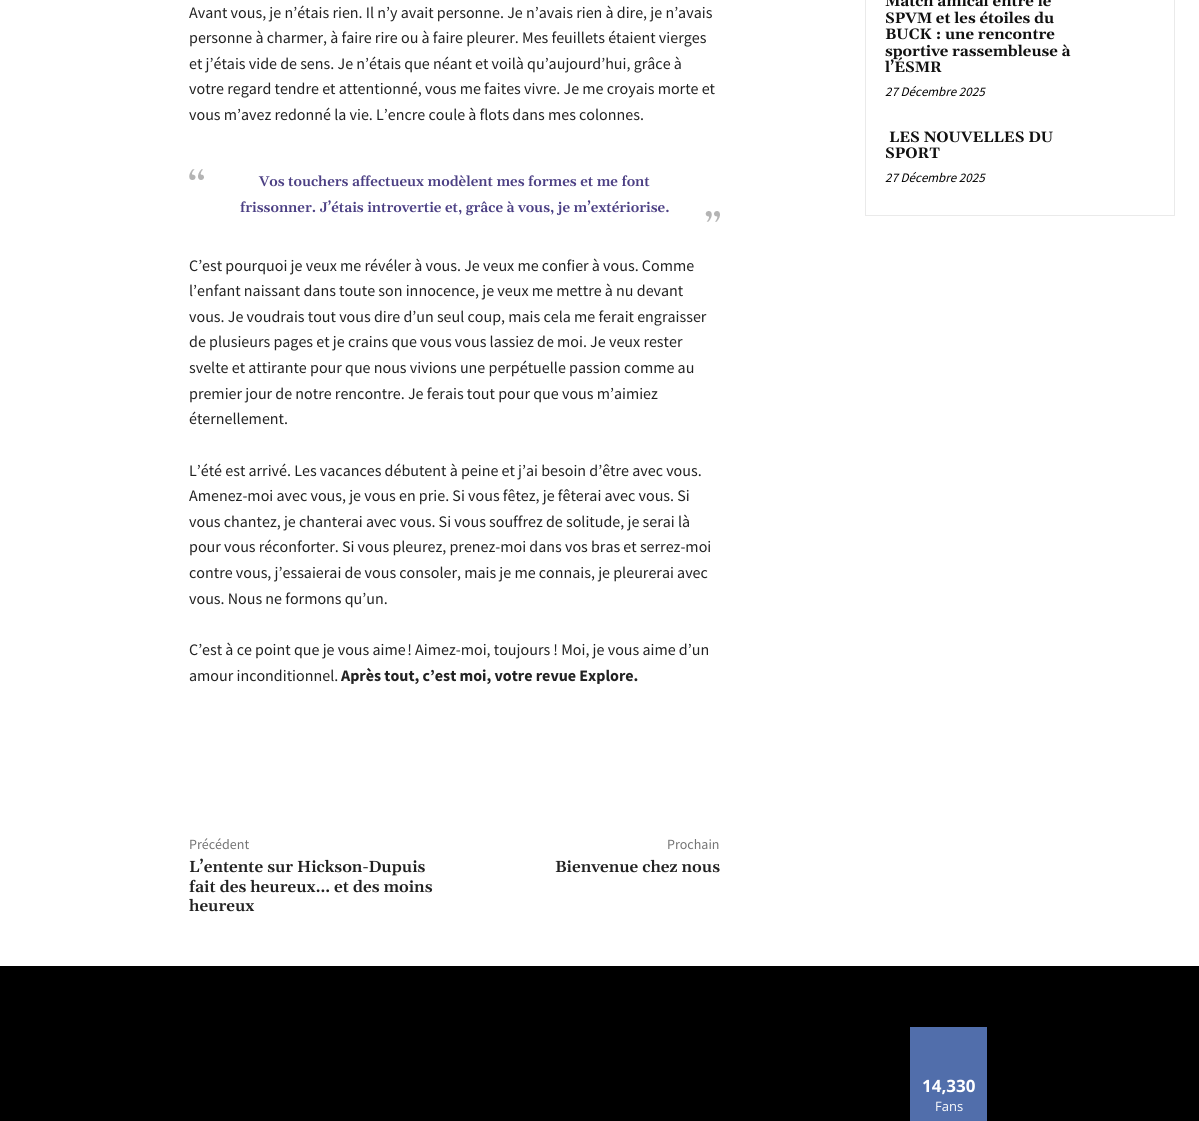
#include <cairo.h>
#include <math.h>
#include <stddef.h>

static cairo_t *ctx;

static void use_color(int r, int g, int b) {
    cairo_set_source_rgb(ctx, r / 255.0, g / 255.0, b / 255.0);
}

static void picture(const char *path, double x, double y, double w, double h) {
    cairo_surface_t *image = cairo_image_surface_create_from_png(path);
    cairo_save(ctx);
    cairo_set_source_surface(ctx, image, x, y);
    cairo_rectangle(ctx, x, y, w, h);
    cairo_fill(ctx);
    cairo_restore(ctx);
    cairo_surface_destroy(image);
}

int main(void) {
    cairo_surface_t *surface = cairo_image_surface_create(CAIRO_FORMAT_RGB24, 1199, 1121);
    ctx = cairo_create(surface);
    cairo_font_options_t *options = cairo_font_options_create();
    cairo_font_options_set_hint_metrics(options, CAIRO_HINT_METRICS_OFF);
    cairo_font_options_set_hint_style(options, CAIRO_HINT_STYLE_NONE);
    cairo_set_font_options(ctx, options);
    cairo_set_miter_limit(ctx, 4);
    use_color(255, 255, 255);
    cairo_paint(ctx);
    cairo_select_font_face(ctx, "Source Sans Pro", CAIRO_FONT_SLANT_NORMAL, CAIRO_FONT_WEIGHT_NORMAL);
    cairo_set_font_size(ctx, 16);
    use_color(34, 34, 34);
    cairo_move_to(ctx, 189, 18);
    cairo_show_text(ctx, "Avant vous, je n’étais rien. Il n’y avait personne. Je n’avais rien à dire, je n’avais");
    cairo_move_to(ctx, 189, 43);
    cairo_show_text(ctx, "personne à charmer, à faire rire ou à faire pleurer. Mes feuillets étaient vierges");
    cairo_move_to(ctx, 189, 69);
    cairo_show_text(ctx, "et j’étais vide de sens. Je n’étais que néant et voilà qu’aujourd’hui, grâce à");
    cairo_move_to(ctx, 189, 94);
    cairo_show_text(ctx, "votre regard tendre et attentionné, vous me faites vivre. Je me croyais morte et");
    cairo_move_to(ctx, 189, 120);
    cairo_show_text(ctx, "vous m’avez redonné la vie. L’encre coule à flots dans mes colonnes.");
    picture("img1.png", 189, 169, 15, 11);
    cairo_select_font_face(ctx, "Gelasio SemiBold", CAIRO_FONT_SLANT_NORMAL, CAIRO_FONT_WEIGHT_NORMAL);
    cairo_set_font_size(ctx, 14);
    use_color(76, 64, 132);
    cairo_move_to(ctx, 259, 186);
    cairo_show_text(ctx, "Vos touchers affectueux modèlent mes formes et me font");
    cairo_move_to(ctx, 240, 212);
    cairo_show_text(ctx, "frissonner. J’étais introvertie et, grâce à vous, je m’extériorise.");
    picture("img2.png", 705, 211, 15, 11);
    cairo_select_font_face(ctx, "Source Sans Pro", CAIRO_FONT_SLANT_NORMAL, CAIRO_FONT_WEIGHT_NORMAL);
    cairo_set_font_size(ctx, 16);
    use_color(34, 34, 34);
    cairo_move_to(ctx, 189, 271);
    cairo_show_text(ctx, "C’est pourquoi je veux me révéler à vous. Je veux me confier à vous. Comme");
    cairo_move_to(ctx, 189, 296);
    cairo_show_text(ctx, "l’enfant naissant dans toute son innocence, je veux me mettre à nu devant");
    cairo_move_to(ctx, 189, 322);
    cairo_show_text(ctx, "vous. Je voudrais tout vous dire d’un seul coup, mais cela me ferait engraisser");
    cairo_move_to(ctx, 189, 347);
    cairo_show_text(ctx, "de plusieurs pages et je crains que vous vous lassiez de moi. Je veux rester");
    cairo_move_to(ctx, 189, 373);
    cairo_show_text(ctx, "svelte et attirante pour que nous vivions une perpétuelle passion comme au");
    cairo_move_to(ctx, 189, 399);
    cairo_show_text(ctx, "premier jour de notre rencontre. Je ferais tout pour que vous m’aimiez");
    cairo_move_to(ctx, 189, 424);
    cairo_show_text(ctx, "éternellement.");
    cairo_move_to(ctx, 189, 476);
    cairo_show_text(ctx, "L’été est arrivé. Les vacances débutent à peine et j’ai besoin d’être avec vous.");
    cairo_move_to(ctx, 189, 501);
    cairo_show_text(ctx, "Amenez-moi avec vous, je vous en prie. Si vous fêtez, je fêterai avec vous. Si");
    cairo_move_to(ctx, 189, 527);
    cairo_show_text(ctx, "vous chantez, je chanterai avec vous. Si vous souffrez de solitude, je serai là");
    cairo_move_to(ctx, 189, 552);
    cairo_show_text(ctx, "pour vous réconforter. Si vous pleurez, prenez-moi dans vos bras et serrez-moi");
    cairo_move_to(ctx, 189, 578);
    cairo_show_text(ctx, "contre vous, j’essaierai de vous consoler, mais je me connais, je pleurerai avec");
    cairo_move_to(ctx, 189, 604);
    cairo_show_text(ctx, "vous. Nous ne formons qu’un.");
    cairo_move_to(ctx, 189, 655);
    cairo_show_text(ctx, "C’est à ce point que je vous aime ! Aimez-moi, toujours ! Moi, je vous aime d’un");
    cairo_move_to(ctx, 189, 681);
    cairo_show_text(ctx, "amour inconditionnel.");
    cairo_select_font_face(ctx, "Source Sans Pro", CAIRO_FONT_SLANT_NORMAL, CAIRO_FONT_WEIGHT_BOLD);
    cairo_move_to(ctx, 341, 681);
    cairo_show_text(ctx, "Après tout, c’est moi, votre revue Explore.");
    cairo_select_font_face(ctx, "Source Sans Pro", CAIRO_FONT_SLANT_NORMAL, CAIRO_FONT_WEIGHT_NORMAL);
    cairo_set_font_size(ctx, 14);
    use_color(116, 116, 116);
    cairo_move_to(ctx, 189, 849);
    cairo_show_text(ctx, "Précédent");
    cairo_select_font_face(ctx, "Gelasio SemiBold", CAIRO_FONT_SLANT_NORMAL, CAIRO_FONT_WEIGHT_NORMAL);
    cairo_set_font_size(ctx, 16);
    use_color(34, 34, 34);
    cairo_move_to(ctx, 189, 872);
    cairo_show_text(ctx, "L’entente sur Hickson-Dupuis");
    cairo_move_to(ctx, 189, 892);
    cairo_show_text(ctx, "fait des heureux… et des moins");
    cairo_move_to(ctx, 189, 911);
    cairo_show_text(ctx, "heureux");
    cairo_select_font_face(ctx, "Source Sans Pro", CAIRO_FONT_SLANT_NORMAL, CAIRO_FONT_WEIGHT_NORMAL);
    cairo_set_font_size(ctx, 14);
    use_color(116, 116, 116);
    cairo_move_to(ctx, 667, 849);
    cairo_show_text(ctx, "Prochain");
    cairo_select_font_face(ctx, "Gelasio SemiBold", CAIRO_FONT_SLANT_NORMAL, CAIRO_FONT_WEIGHT_NORMAL);
    cairo_set_font_size(ctx, 16);
    use_color(34, 34, 34);
    cairo_move_to(ctx, 555, 872);
    cairo_show_text(ctx, "Bienvenue chez nous");
    cairo_rectangle(ctx, 865.5, -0.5, 309, 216);
    use_color(234, 234, 234);
    cairo_set_line_width(ctx, 1);
    cairo_stroke(ctx);
    cairo_select_font_face(ctx, "Gelasio", CAIRO_FONT_SLANT_NORMAL, CAIRO_FONT_WEIGHT_BOLD);
    cairo_set_font_size(ctx, 15);
    use_color(17, 17, 17);
    cairo_move_to(ctx, 885, 6);
    cairo_show_text(ctx, "Match amical entre le");
    cairo_move_to(ctx, 885, 23);
    cairo_show_text(ctx, "SPVM et les étoiles du");
    cairo_move_to(ctx, 885, 39);
    cairo_show_text(ctx, "BUCK : une rencontre");
    cairo_move_to(ctx, 885, 56);
    cairo_show_text(ctx, "sportive rassembleuse à");
    cairo_move_to(ctx, 885, 72);
    cairo_show_text(ctx, "l’ÉSMR");
    cairo_select_font_face(ctx, "Source Sans Pro", CAIRO_FONT_SLANT_ITALIC, CAIRO_FONT_WEIGHT_NORMAL);
    cairo_set_font_size(ctx, 13);
    use_color(0, 0, 0);
    cairo_move_to(ctx, 885, 96);
    cairo_show_text(ctx, "27 Décembre 2025");
    cairo_select_font_face(ctx, "Gelasio", CAIRO_FONT_SLANT_NORMAL, CAIRO_FONT_WEIGHT_BOLD);
    cairo_set_font_size(ctx, 15);
    use_color(17, 17, 17);
    cairo_move_to(ctx, 889, 142);
    cairo_show_text(ctx, "LES NOUVELLES DU");
    cairo_move_to(ctx, 885, 158);
    cairo_show_text(ctx, "SPORT");
    cairo_select_font_face(ctx, "Source Sans Pro", CAIRO_FONT_SLANT_ITALIC, CAIRO_FONT_WEIGHT_NORMAL);
    cairo_set_font_size(ctx, 13);
    use_color(0, 0, 0);
    cairo_move_to(ctx, 885, 182);
    cairo_show_text(ctx, "27 Décembre 2025");
    cairo_rectangle(ctx, 0, 966, 1199, 155);
    cairo_fill(ctx);
    use_color(81, 110, 171);
    cairo_rectangle(ctx, 910, 1027, 77, 94);
    cairo_fill(ctx);
    cairo_select_font_face(ctx, "Open Sans", CAIRO_FONT_SLANT_NORMAL, CAIRO_FONT_WEIGHT_BOLD);
    cairo_set_font_size(ctx, 17);
    use_color(255, 255, 255);
    cairo_move_to(ctx, 922, 1092);
    cairo_show_text(ctx, "14,330");
    cairo_select_font_face(ctx, "Open Sans", CAIRO_FONT_SLANT_NORMAL, CAIRO_FONT_WEIGHT_NORMAL);
    cairo_set_font_size(ctx, 13);
    cairo_move_to(ctx, 935, 1111);
    cairo_show_text(ctx, "Fans");
    cairo_surface_write_to_png(surface, "result.png");
    cairo_font_options_destroy(options);
    cairo_destroy(ctx);
    cairo_surface_destroy(surface);
    return 0;
}
